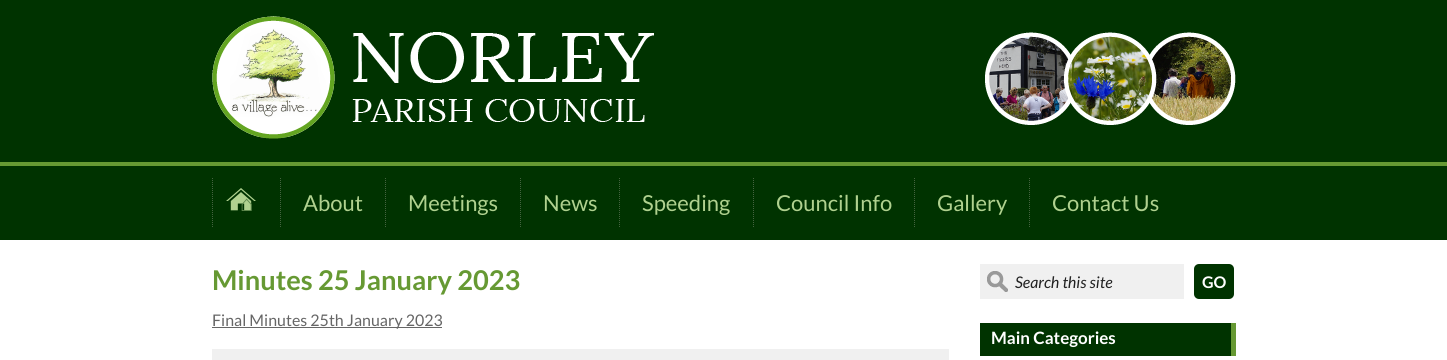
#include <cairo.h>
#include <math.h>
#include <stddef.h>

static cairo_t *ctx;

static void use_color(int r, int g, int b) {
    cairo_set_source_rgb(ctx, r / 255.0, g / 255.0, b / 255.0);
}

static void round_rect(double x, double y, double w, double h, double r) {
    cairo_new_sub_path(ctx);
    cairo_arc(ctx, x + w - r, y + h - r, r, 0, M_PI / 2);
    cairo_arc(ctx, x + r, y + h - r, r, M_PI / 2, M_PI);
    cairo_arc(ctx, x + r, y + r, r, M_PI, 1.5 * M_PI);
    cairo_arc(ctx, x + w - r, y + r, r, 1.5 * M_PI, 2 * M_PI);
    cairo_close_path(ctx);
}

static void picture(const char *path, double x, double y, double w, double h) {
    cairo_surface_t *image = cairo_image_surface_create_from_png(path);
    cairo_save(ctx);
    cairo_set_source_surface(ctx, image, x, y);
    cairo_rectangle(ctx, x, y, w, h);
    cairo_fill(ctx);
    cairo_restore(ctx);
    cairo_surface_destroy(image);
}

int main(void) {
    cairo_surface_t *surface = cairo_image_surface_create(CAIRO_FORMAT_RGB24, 1447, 360);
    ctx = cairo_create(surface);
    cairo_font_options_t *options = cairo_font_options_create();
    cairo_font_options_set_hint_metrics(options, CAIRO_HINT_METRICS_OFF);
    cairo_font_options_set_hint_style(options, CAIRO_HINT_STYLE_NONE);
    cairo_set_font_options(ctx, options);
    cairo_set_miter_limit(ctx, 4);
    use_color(255, 255, 255);
    cairo_paint(ctx);
    use_color(0, 51, 0);
    cairo_rectangle(ctx, 0, 0, 1447, 240);
    cairo_fill(ctx);
    picture("img1.png", 212, 16, 442, 123);
    picture("img2.png", 985, 32, 251, 93);
    use_color(102, 153, 51);
    cairo_rectangle(ctx, 0, 162, 1447, 4);
    cairo_fill(ctx);
    picture("img3.png", 226, 188, 30, 23);
    cairo_new_path(ctx);
    cairo_move_to(ctx, 212.5, 178);
    cairo_line_to(ctx, 212.5, 227);
    use_color(68, 99, 63);
    cairo_set_line_width(ctx, 1);
    cairo_set_dash(ctx, (double[]){1, 1}, 2, 0);
    cairo_stroke(ctx);
    cairo_select_font_face(ctx, "Liberation Sans", CAIRO_FONT_SLANT_NORMAL, CAIRO_FONT_WEIGHT_NORMAL);
    cairo_set_font_size(ctx, 22);
    use_color(98, 139, 80);
    cairo_move_to(ctx, 240, 211);
    cairo_show_text(ctx, "⌂");
    cairo_new_path(ctx);
    cairo_move_to(ctx, 280.5, 178);
    cairo_line_to(ctx, 280.5, 227);
    use_color(68, 99, 63);
    cairo_stroke(ctx);
    cairo_select_font_face(ctx, "Lato", CAIRO_FONT_SLANT_NORMAL, CAIRO_FONT_WEIGHT_NORMAL);
    use_color(176, 209, 143);
    cairo_move_to(ctx, 303, 211);
    cairo_show_text(ctx, "About");
    cairo_new_path(ctx);
    cairo_move_to(ctx, 385.5, 178);
    cairo_line_to(ctx, 385.5, 227);
    use_color(68, 99, 63);
    cairo_stroke(ctx);
    use_color(176, 209, 143);
    cairo_move_to(ctx, 408, 211);
    cairo_show_text(ctx, "Meetings");
    cairo_new_path(ctx);
    cairo_move_to(ctx, 520.5, 178);
    cairo_line_to(ctx, 520.5, 227);
    use_color(68, 99, 63);
    cairo_stroke(ctx);
    use_color(176, 209, 143);
    cairo_move_to(ctx, 543, 211);
    cairo_show_text(ctx, "News");
    cairo_new_path(ctx);
    cairo_move_to(ctx, 619.5, 178);
    cairo_line_to(ctx, 619.5, 227);
    use_color(68, 99, 63);
    cairo_stroke(ctx);
    use_color(176, 209, 143);
    cairo_move_to(ctx, 642, 211);
    cairo_show_text(ctx, "Speeding");
    cairo_new_path(ctx);
    cairo_move_to(ctx, 753.5, 178);
    cairo_line_to(ctx, 753.5, 227);
    use_color(68, 99, 63);
    cairo_stroke(ctx);
    use_color(176, 209, 143);
    cairo_move_to(ctx, 776, 211);
    cairo_show_text(ctx, "Council Info");
    cairo_new_path(ctx);
    cairo_move_to(ctx, 914.5, 178);
    cairo_line_to(ctx, 914.5, 227);
    use_color(68, 99, 63);
    cairo_stroke(ctx);
    use_color(176, 209, 143);
    cairo_move_to(ctx, 937, 211);
    cairo_show_text(ctx, "Gallery");
    cairo_new_path(ctx);
    cairo_move_to(ctx, 1029.5, 178);
    cairo_line_to(ctx, 1029.5, 227);
    use_color(68, 99, 63);
    cairo_stroke(ctx);
    use_color(176, 209, 143);
    cairo_move_to(ctx, 1052, 211);
    cairo_show_text(ctx, "Contact Us");
    cairo_select_font_face(ctx, "Lato", CAIRO_FONT_SLANT_NORMAL, CAIRO_FONT_WEIGHT_BOLD);
    cairo_set_font_size(ctx, 27.25);
    use_color(102, 153, 51);
    cairo_move_to(ctx, 212, 290);
    cairo_show_text(ctx, "Minutes 25 January 2023");
    use_color(102, 102, 102);
    cairo_rectangle(ctx, 212, 327, 230, 1);
    cairo_fill(ctx);
    cairo_select_font_face(ctx, "Lato", CAIRO_FONT_SLANT_NORMAL, CAIRO_FONT_WEIGHT_NORMAL);
    cairo_set_font_size(ctx, 16);
    cairo_move_to(ctx, 212, 326);
    cairo_show_text(ctx, "Final Minutes 25th January 2023");
    use_color(240, 240, 240);
    cairo_rectangle(ctx, 212, 349, 737, 11);
    cairo_fill(ctx);
    cairo_rectangle(ctx, 980, 264, 204, 35);
    cairo_fill(ctx);
    picture("img4.png", 987, 271, 21, 21);
    cairo_select_font_face(ctx, "Lato", CAIRO_FONT_SLANT_ITALIC, CAIRO_FONT_WEIGHT_NORMAL);
    use_color(34, 34, 34);
    cairo_move_to(ctx, 1015, 288);
    cairo_show_text(ctx, "Search this site");
    use_color(0, 51, 0);
    round_rect(1194, 264, 40, 35, 5);
    cairo_fill(ctx);
    cairo_select_font_face(ctx, "Lato", CAIRO_FONT_SLANT_NORMAL, CAIRO_FONT_WEIGHT_BOLD);
    use_color(255, 255, 255);
    cairo_move_to(ctx, 1202, 288);
    cairo_show_text(ctx, "GO");
    use_color(0, 51, 0);
    cairo_rectangle(ctx, 980, 323, 251, 33);
    cairo_fill(ctx);
    use_color(102, 153, 51);
    cairo_rectangle(ctx, 1231, 323, 5, 33);
    cairo_fill(ctx);
    cairo_set_font_size(ctx, 17);
    use_color(255, 255, 255);
    cairo_move_to(ctx, 991, 344);
    cairo_show_text(ctx, "Main Categories");
    cairo_surface_write_to_png(surface, "result.png");
    cairo_font_options_destroy(options);
    cairo_destroy(ctx);
    cairo_surface_destroy(surface);
    return 0;
}
